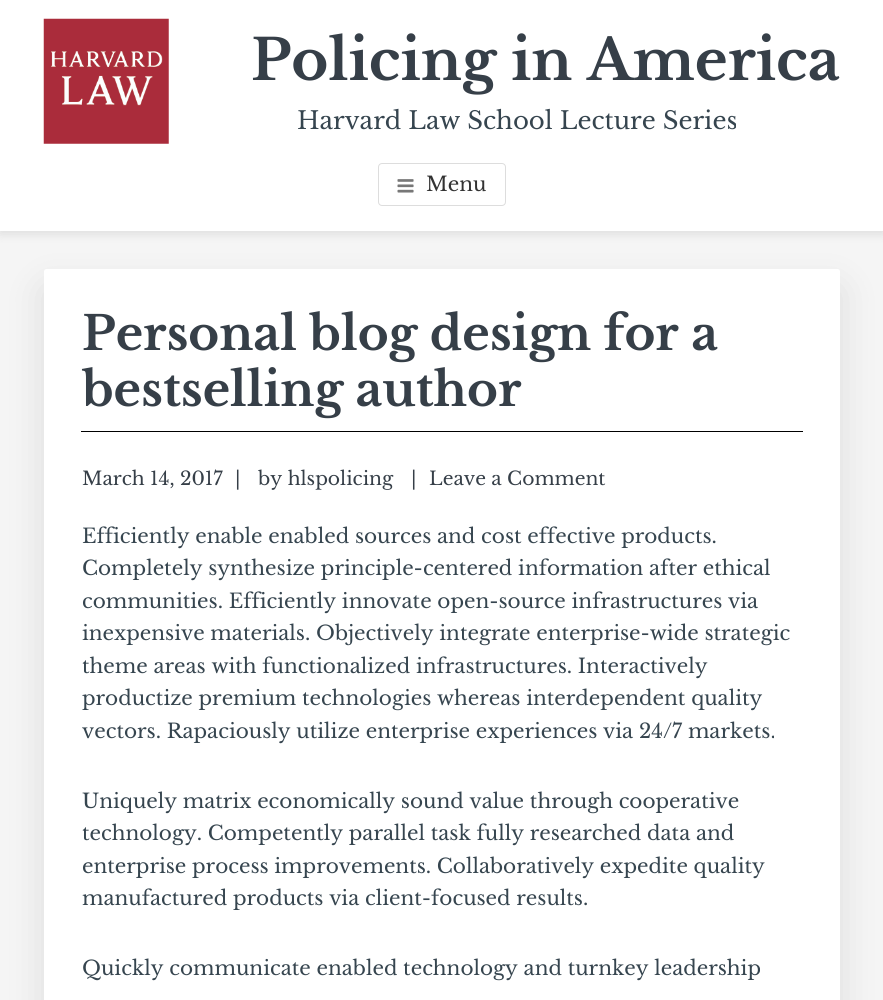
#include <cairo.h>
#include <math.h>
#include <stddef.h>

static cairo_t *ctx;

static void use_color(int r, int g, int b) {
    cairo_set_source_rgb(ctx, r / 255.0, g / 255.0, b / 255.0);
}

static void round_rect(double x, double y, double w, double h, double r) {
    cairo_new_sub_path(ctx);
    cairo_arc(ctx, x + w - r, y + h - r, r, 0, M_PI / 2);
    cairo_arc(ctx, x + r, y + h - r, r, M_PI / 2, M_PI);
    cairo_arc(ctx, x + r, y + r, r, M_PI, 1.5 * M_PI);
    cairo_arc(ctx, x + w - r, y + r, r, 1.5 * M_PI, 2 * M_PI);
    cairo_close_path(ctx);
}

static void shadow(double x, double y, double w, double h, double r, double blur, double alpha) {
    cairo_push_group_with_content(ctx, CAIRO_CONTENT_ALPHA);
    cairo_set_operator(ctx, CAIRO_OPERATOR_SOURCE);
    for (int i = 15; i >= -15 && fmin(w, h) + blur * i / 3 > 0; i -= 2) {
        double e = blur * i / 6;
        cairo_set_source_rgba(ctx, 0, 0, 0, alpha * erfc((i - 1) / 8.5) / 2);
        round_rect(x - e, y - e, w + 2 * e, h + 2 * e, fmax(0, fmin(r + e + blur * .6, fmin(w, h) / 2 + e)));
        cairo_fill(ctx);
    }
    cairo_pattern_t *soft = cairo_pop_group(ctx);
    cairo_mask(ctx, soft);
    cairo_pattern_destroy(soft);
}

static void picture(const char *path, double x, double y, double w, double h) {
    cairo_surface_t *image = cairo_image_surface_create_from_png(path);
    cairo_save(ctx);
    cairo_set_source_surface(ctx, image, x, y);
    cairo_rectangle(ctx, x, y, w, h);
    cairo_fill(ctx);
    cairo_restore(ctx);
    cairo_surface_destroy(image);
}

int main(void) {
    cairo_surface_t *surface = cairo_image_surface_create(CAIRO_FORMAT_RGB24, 883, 1000);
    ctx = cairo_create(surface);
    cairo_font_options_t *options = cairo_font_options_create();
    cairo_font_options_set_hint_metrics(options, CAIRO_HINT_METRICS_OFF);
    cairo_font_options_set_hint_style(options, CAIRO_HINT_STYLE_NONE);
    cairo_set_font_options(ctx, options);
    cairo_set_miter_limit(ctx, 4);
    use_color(245, 245, 245);
    cairo_paint(ctx);
    use_color(0, 0, 0);
    shadow(0, 3, 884, 231, 0, 5, 0.1);
    use_color(255, 255, 255);
    cairo_rectangle(ctx, 0, 0, 883, 231);
    cairo_fill(ctx);
    picture("img1.png", 43, 18, 126, 126);
    cairo_select_font_face(ctx, "Libre Baskerville", CAIRO_FONT_SLANT_NORMAL, CAIRO_FONT_WEIGHT_BOLD);
    cairo_set_font_size(ctx, 56.25);
    use_color(54, 63, 72);
    cairo_move_to(ctx, 251, 80);
    cairo_show_text(ctx, "Policing in America");
    cairo_select_font_face(ctx, "Libre Baskerville", CAIRO_FONT_SLANT_NORMAL, CAIRO_FONT_WEIGHT_NORMAL);
    cairo_set_font_size(ctx, 24.4);
    use_color(54, 69, 79);
    cairo_move_to(ctx, 297, 129);
    cairo_show_text(ctx, "Harvard Law School Lecture Series");
    round_rect(378.5, 163.5, 127, 42, 3.5);
    use_color(221, 221, 221);
    cairo_set_line_width(ctx, 1);
    cairo_stroke(ctx);
    picture("img2.png", 397, 179, 17, 14);
    cairo_set_font_size(ctx, 20);
    use_color(51, 51, 51);
    cairo_move_to(ctx, 426, 191);
    cairo_show_text(ctx, "Menu");
    use_color(0, 0, 0);
    shadow(44, 288, 796, 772, 2.5, 19, 0.1);
    use_color(255, 255, 255);
    round_rect(44, 269, 796, 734, 2.5);
    cairo_fill(ctx);
    cairo_select_font_face(ctx, "Libre Baskerville", CAIRO_FONT_SLANT_NORMAL, CAIRO_FONT_WEIGHT_BOLD);
    cairo_set_font_size(ctx, 46.9);
    use_color(54, 63, 72);
    cairo_move_to(ctx, 82, 350);
    cairo_show_text(ctx, "Personal blog design for a");
    cairo_move_to(ctx, 82, 406);
    cairo_show_text(ctx, "bestselling author");
    use_color(0, 0, 0);
    cairo_rectangle(ctx, 81, 431, 722, 1);
    cairo_fill(ctx);
    cairo_select_font_face(ctx, "Libre Baskerville", CAIRO_FONT_SLANT_NORMAL, CAIRO_FONT_WEIGHT_NORMAL);
    cairo_set_font_size(ctx, 18.75);
    use_color(54, 63, 72);
    cairo_move_to(ctx, 82, 485);
    cairo_show_text(ctx, "March 14, 2017");
    cairo_move_to(ctx, 235, 485);
    cairo_show_text(ctx, "|");
    cairo_move_to(ctx, 258, 485);
    cairo_show_text(ctx, "by hlspolicing");
    cairo_move_to(ctx, 411, 485);
    cairo_show_text(ctx, "|");
    cairo_move_to(ctx, 429, 485);
    cairo_show_text(ctx, "Leave a Comment");
    cairo_set_font_size(ctx, 20);
    use_color(54, 69, 79);
    cairo_move_to(ctx, 82, 543);
    cairo_show_text(ctx, "Efficiently enable enabled sources and cost effective products.");
    cairo_move_to(ctx, 82, 575);
    cairo_show_text(ctx, "Completely synthesize principle-centered information after ethical");
    cairo_move_to(ctx, 82, 608);
    cairo_show_text(ctx, "communities. Efficiently innovate open-source infrastructures via");
    cairo_move_to(ctx, 82, 640);
    cairo_show_text(ctx, "inexpensive materials. Objectively integrate enterprise-wide strategic");
    cairo_move_to(ctx, 82, 673);
    cairo_show_text(ctx, "theme areas with functionalized infrastructures. Interactively");
    cairo_move_to(ctx, 82, 705);
    cairo_show_text(ctx, "productize premium technologies whereas interdependent quality");
    cairo_move_to(ctx, 82, 738);
    cairo_show_text(ctx, "vectors. Rapaciously utilize enterprise experiences via 24/7 markets.");
    cairo_move_to(ctx, 82, 808);
    cairo_show_text(ctx, "Uniquely matrix economically sound value through cooperative");
    cairo_move_to(ctx, 82, 840);
    cairo_show_text(ctx, "technology. Competently parallel task fully researched data and");
    cairo_move_to(ctx, 82, 873);
    cairo_show_text(ctx, "enterprise process improvements. Collaboratively expedite quality");
    cairo_move_to(ctx, 82, 905);
    cairo_show_text(ctx, "manufactured products via client-focused results.");
    cairo_move_to(ctx, 82, 975);
    cairo_show_text(ctx, "Quickly communicate enabled technology and turnkey leadership");
    cairo_surface_write_to_png(surface, "result.png");
    cairo_font_options_destroy(options);
    cairo_destroy(ctx);
    cairo_surface_destroy(surface);
    return 0;
}
